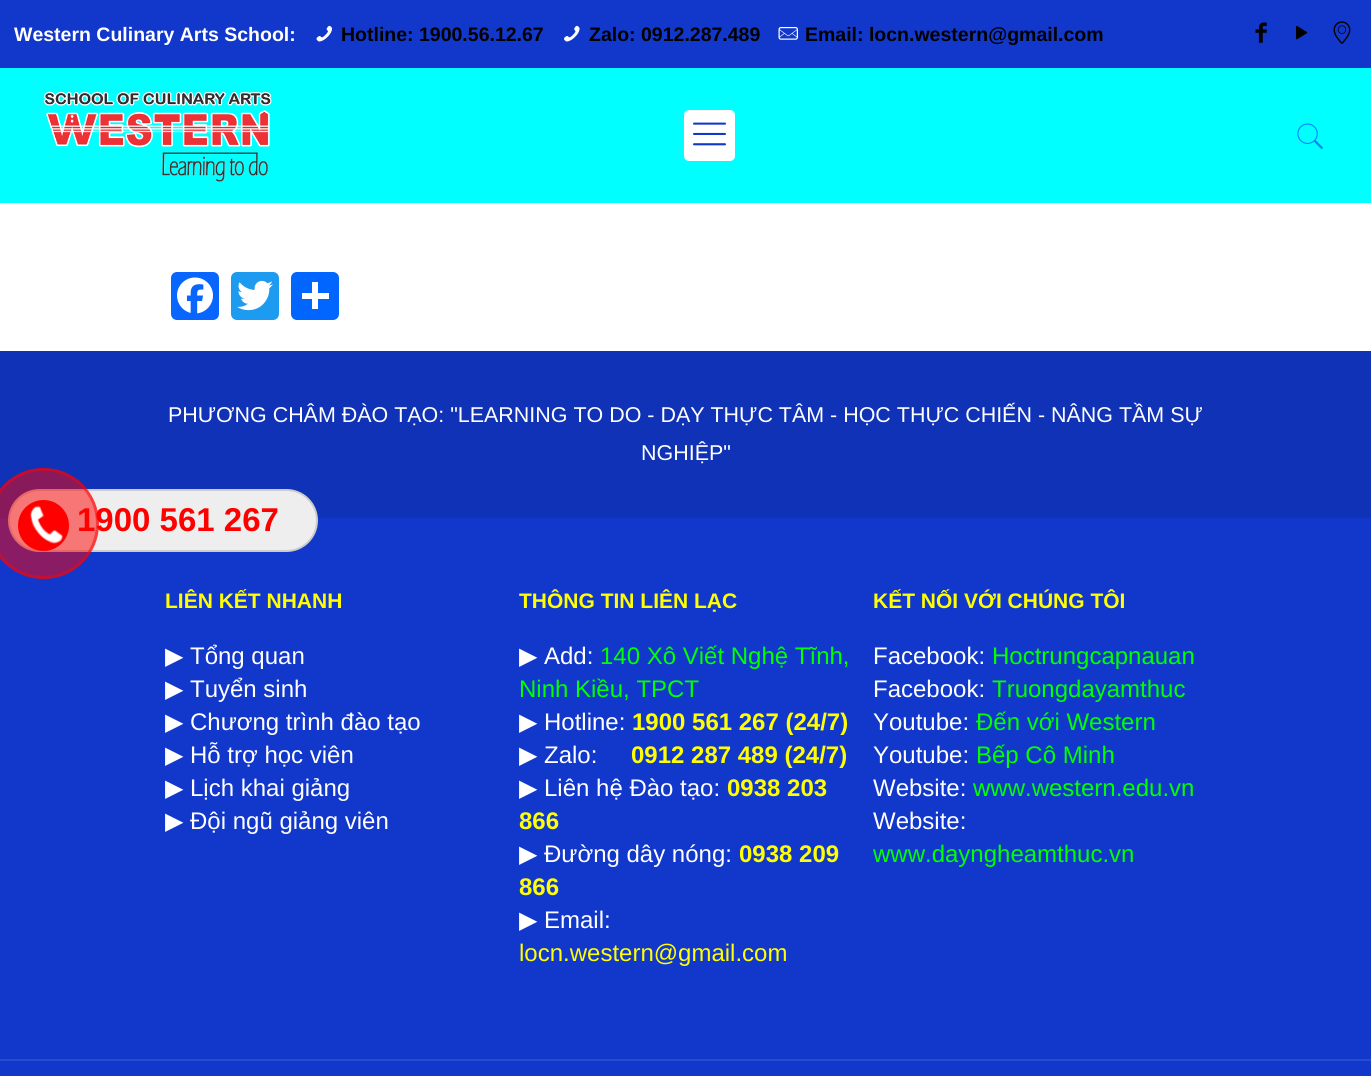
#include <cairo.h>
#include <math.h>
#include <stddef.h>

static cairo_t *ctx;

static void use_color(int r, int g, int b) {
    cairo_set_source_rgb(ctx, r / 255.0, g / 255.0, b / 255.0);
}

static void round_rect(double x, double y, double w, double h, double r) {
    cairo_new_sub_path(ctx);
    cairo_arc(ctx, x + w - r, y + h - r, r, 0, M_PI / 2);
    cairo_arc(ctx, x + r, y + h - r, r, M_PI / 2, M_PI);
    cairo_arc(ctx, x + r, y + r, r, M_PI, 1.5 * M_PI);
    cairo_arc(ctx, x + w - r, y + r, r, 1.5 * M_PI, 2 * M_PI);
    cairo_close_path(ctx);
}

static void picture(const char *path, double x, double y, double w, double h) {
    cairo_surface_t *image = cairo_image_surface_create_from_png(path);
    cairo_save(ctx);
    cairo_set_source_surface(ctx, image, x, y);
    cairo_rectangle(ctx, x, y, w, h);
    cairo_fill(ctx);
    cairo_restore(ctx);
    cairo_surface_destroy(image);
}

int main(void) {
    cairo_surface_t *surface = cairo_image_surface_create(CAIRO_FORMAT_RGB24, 1371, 1076);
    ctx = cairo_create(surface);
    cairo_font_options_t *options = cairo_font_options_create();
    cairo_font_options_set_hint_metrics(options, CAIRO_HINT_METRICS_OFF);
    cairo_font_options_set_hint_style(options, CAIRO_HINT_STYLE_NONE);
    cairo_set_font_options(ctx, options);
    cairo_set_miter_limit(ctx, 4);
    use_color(255, 255, 255);
    cairo_paint(ctx);
    use_color(18, 56, 203);
    cairo_rectangle(ctx, 0, 0, 1371, 68);
    cairo_fill(ctx);
    cairo_select_font_face(ctx, "Liberation Sans", CAIRO_FONT_SLANT_NORMAL, CAIRO_FONT_WEIGHT_BOLD);
    cairo_set_font_size(ctx, 19.5);
    use_color(255, 255, 255);
    cairo_move_to(ctx, 14, 41);
    cairo_show_text(ctx, "Western Culinary Arts School:");
    picture("img1.png", 316, 25, 17, 17);
    use_color(0, 0, 0);
    cairo_move_to(ctx, 341, 41);
    cairo_show_text(ctx, "Hotline: 1900.56.12.67");
    picture("img2.png", 564, 25, 16, 17);
    cairo_move_to(ctx, 589, 41);
    cairo_show_text(ctx, "Zalo: 0912.287.489");
    picture("img3.png", 778, 27, 20, 13);
    cairo_move_to(ctx, 805, 41);
    cairo_show_text(ctx, "Email: locn.western@gmail.com");
    picture("img4.png", 1255, 22, 12, 21);
    picture("img5.png", 1296, 25, 12, 15);
    picture("img6.png", 1333, 21, 18, 23);
    use_color(0, 255, 255);
    cairo_rectangle(ctx, 0, 68, 1371, 135);
    cairo_fill(ctx);
    picture("img7.png", 43, 91, 229, 91);
    use_color(255, 255, 255);
    round_rect(684, 110, 51, 51, 5);
    cairo_fill(ctx);
    picture("img8.png", 693, 122, 33, 24);
    picture("img9.png", 1297, 123, 27, 27);
    use_color(8, 102, 255);
    round_rect(171, 272, 48, 48, 6);
    cairo_fill(ctx);
    picture("img10.png", 177, 277, 36, 37);
    use_color(29, 155, 240);
    round_rect(231, 272, 48, 48, 6);
    cairo_fill(ctx);
    picture("img11.png", 237, 280, 36, 31);
    use_color(1, 102, 255);
    round_rect(291, 272, 48, 48, 6);
    cairo_fill(ctx);
    use_color(255, 255, 255);
    cairo_rectangle(ctx, 312, 282, 6, 27);
    cairo_fill(ctx);
    cairo_rectangle(ctx, 302, 293, 27, 6);
    cairo_fill(ctx);
    use_color(18, 56, 203);
    cairo_rectangle(ctx, 0, 518, 1371, 558);
    cairo_fill(ctx);
    use_color(16, 50, 183);
    cairo_rectangle(ctx, 0, 351, 1371, 167);
    cairo_fill(ctx);
    cairo_select_font_face(ctx, "Liberation Sans", CAIRO_FONT_SLANT_NORMAL, CAIRO_FONT_WEIGHT_NORMAL);
    cairo_set_font_size(ctx, 21.45);
    use_color(255, 255, 255);
    cairo_move_to(ctx, 168, 422);
    cairo_show_text(ctx, "PHƯƠNG CHÂM ĐÀO TẠO: \"LEARNING TO DO - DẠY THỰC TÂM - HỌC THỰC CHIẾN - NÂNG TẦM SỰ");
    cairo_move_to(ctx, 641, 460);
    cairo_show_text(ctx, "NGHIỆP\"");
    cairo_select_font_face(ctx, "Liberation Sans", CAIRO_FONT_SLANT_NORMAL, CAIRO_FONT_WEIGHT_BOLD);
    cairo_set_font_size(ctx, 21);
    use_color(255, 255, 0);
    cairo_move_to(ctx, 165, 608);
    cairo_show_text(ctx, "LIÊN KẾT NHANH");
    cairo_select_font_face(ctx, "DejaVu Sans", CAIRO_FONT_SLANT_NORMAL, CAIRO_FONT_WEIGHT_NORMAL);
    cairo_set_font_size(ctx, 24);
    use_color(255, 255, 255);
    cairo_move_to(ctx, 165, 664);
    cairo_show_text(ctx, "▶");
    cairo_select_font_face(ctx, "Liberation Sans", CAIRO_FONT_SLANT_NORMAL, CAIRO_FONT_WEIGHT_NORMAL);
    cairo_move_to(ctx, 190, 664);
    cairo_show_text(ctx, "Tổng quan");
    cairo_select_font_face(ctx, "DejaVu Sans", CAIRO_FONT_SLANT_NORMAL, CAIRO_FONT_WEIGHT_NORMAL);
    cairo_move_to(ctx, 165, 697);
    cairo_show_text(ctx, "▶");
    cairo_select_font_face(ctx, "Liberation Sans", CAIRO_FONT_SLANT_NORMAL, CAIRO_FONT_WEIGHT_NORMAL);
    cairo_move_to(ctx, 190, 697);
    cairo_show_text(ctx, "Tuyển sinh");
    cairo_select_font_face(ctx, "DejaVu Sans", CAIRO_FONT_SLANT_NORMAL, CAIRO_FONT_WEIGHT_NORMAL);
    cairo_move_to(ctx, 165, 730);
    cairo_show_text(ctx, "▶");
    cairo_select_font_face(ctx, "Liberation Sans", CAIRO_FONT_SLANT_NORMAL, CAIRO_FONT_WEIGHT_NORMAL);
    cairo_move_to(ctx, 190, 730);
    cairo_show_text(ctx, "Chương trình đào tạo");
    cairo_select_font_face(ctx, "DejaVu Sans", CAIRO_FONT_SLANT_NORMAL, CAIRO_FONT_WEIGHT_NORMAL);
    cairo_move_to(ctx, 165, 763);
    cairo_show_text(ctx, "▶");
    cairo_select_font_face(ctx, "Liberation Sans", CAIRO_FONT_SLANT_NORMAL, CAIRO_FONT_WEIGHT_NORMAL);
    cairo_move_to(ctx, 190, 763);
    cairo_show_text(ctx, "Hỗ trợ học viên");
    cairo_select_font_face(ctx, "DejaVu Sans", CAIRO_FONT_SLANT_NORMAL, CAIRO_FONT_WEIGHT_NORMAL);
    cairo_move_to(ctx, 165, 796);
    cairo_show_text(ctx, "▶");
    cairo_select_font_face(ctx, "Liberation Sans", CAIRO_FONT_SLANT_NORMAL, CAIRO_FONT_WEIGHT_NORMAL);
    cairo_move_to(ctx, 190, 796);
    cairo_show_text(ctx, "Lịch khai giảng");
    cairo_select_font_face(ctx, "DejaVu Sans", CAIRO_FONT_SLANT_NORMAL, CAIRO_FONT_WEIGHT_NORMAL);
    cairo_move_to(ctx, 165, 829);
    cairo_show_text(ctx, "▶");
    cairo_select_font_face(ctx, "Liberation Sans", CAIRO_FONT_SLANT_NORMAL, CAIRO_FONT_WEIGHT_NORMAL);
    cairo_move_to(ctx, 190, 829);
    cairo_show_text(ctx, "Đội ngũ giảng viên");
    cairo_select_font_face(ctx, "Liberation Sans", CAIRO_FONT_SLANT_NORMAL, CAIRO_FONT_WEIGHT_BOLD);
    cairo_set_font_size(ctx, 21);
    use_color(255, 255, 0);
    cairo_move_to(ctx, 519, 608);
    cairo_show_text(ctx, "THÔNG TIN LIÊN LẠC");
    cairo_select_font_face(ctx, "DejaVu Sans", CAIRO_FONT_SLANT_NORMAL, CAIRO_FONT_WEIGHT_NORMAL);
    cairo_set_font_size(ctx, 24);
    use_color(255, 255, 255);
    cairo_move_to(ctx, 519, 664);
    cairo_show_text(ctx, "▶");
    cairo_select_font_face(ctx, "Liberation Sans", CAIRO_FONT_SLANT_NORMAL, CAIRO_FONT_WEIGHT_NORMAL);
    cairo_move_to(ctx, 544, 664);
    cairo_show_text(ctx, "Add:");
    use_color(0, 255, 0);
    cairo_move_to(ctx, 600, 664);
    cairo_show_text(ctx, "140 Xô Viết Nghệ Tĩnh,");
    cairo_move_to(ctx, 519, 697);
    cairo_show_text(ctx, "Ninh Kiều, TPCT");
    cairo_select_font_face(ctx, "DejaVu Sans", CAIRO_FONT_SLANT_NORMAL, CAIRO_FONT_WEIGHT_NORMAL);
    use_color(255, 255, 255);
    cairo_move_to(ctx, 519, 730);
    cairo_show_text(ctx, "▶");
    cairo_select_font_face(ctx, "Liberation Sans", CAIRO_FONT_SLANT_NORMAL, CAIRO_FONT_WEIGHT_NORMAL);
    cairo_move_to(ctx, 544, 730);
    cairo_show_text(ctx, "Hotline:");
    cairo_select_font_face(ctx, "Liberation Sans", CAIRO_FONT_SLANT_NORMAL, CAIRO_FONT_WEIGHT_BOLD);
    use_color(255, 255, 0);
    cairo_move_to(ctx, 632, 730);
    cairo_show_text(ctx, "1900 561 267 (24/7)");
    cairo_select_font_face(ctx, "DejaVu Sans", CAIRO_FONT_SLANT_NORMAL, CAIRO_FONT_WEIGHT_NORMAL);
    use_color(255, 255, 255);
    cairo_move_to(ctx, 519, 763);
    cairo_show_text(ctx, "▶");
    cairo_select_font_face(ctx, "Liberation Sans", CAIRO_FONT_SLANT_NORMAL, CAIRO_FONT_WEIGHT_NORMAL);
    cairo_move_to(ctx, 544, 763);
    cairo_show_text(ctx, "Zalo:");
    cairo_select_font_face(ctx, "Liberation Sans", CAIRO_FONT_SLANT_NORMAL, CAIRO_FONT_WEIGHT_BOLD);
    use_color(255, 255, 0);
    cairo_move_to(ctx, 631, 763);
    cairo_show_text(ctx, "0912 287 489 (24/7)");
    cairo_select_font_face(ctx, "DejaVu Sans", CAIRO_FONT_SLANT_NORMAL, CAIRO_FONT_WEIGHT_NORMAL);
    use_color(255, 255, 255);
    cairo_move_to(ctx, 519, 796);
    cairo_show_text(ctx, "▶");
    cairo_select_font_face(ctx, "Liberation Sans", CAIRO_FONT_SLANT_NORMAL, CAIRO_FONT_WEIGHT_NORMAL);
    cairo_move_to(ctx, 544, 796);
    cairo_show_text(ctx, "Liên hệ Đào tạo:");
    cairo_select_font_face(ctx, "Liberation Sans", CAIRO_FONT_SLANT_NORMAL, CAIRO_FONT_WEIGHT_BOLD);
    use_color(255, 255, 0);
    cairo_move_to(ctx, 727, 796);
    cairo_show_text(ctx, "0938 203");
    cairo_move_to(ctx, 519, 829);
    cairo_show_text(ctx, "866");
    cairo_select_font_face(ctx, "DejaVu Sans", CAIRO_FONT_SLANT_NORMAL, CAIRO_FONT_WEIGHT_NORMAL);
    use_color(255, 255, 255);
    cairo_move_to(ctx, 519, 862);
    cairo_show_text(ctx, "▶");
    cairo_select_font_face(ctx, "Liberation Sans", CAIRO_FONT_SLANT_NORMAL, CAIRO_FONT_WEIGHT_NORMAL);
    cairo_move_to(ctx, 544, 862);
    cairo_show_text(ctx, "Đường dây nóng:");
    cairo_select_font_face(ctx, "Liberation Sans", CAIRO_FONT_SLANT_NORMAL, CAIRO_FONT_WEIGHT_BOLD);
    use_color(255, 255, 0);
    cairo_move_to(ctx, 739, 862);
    cairo_show_text(ctx, "0938 209");
    cairo_move_to(ctx, 519, 895);
    cairo_show_text(ctx, "866");
    cairo_select_font_face(ctx, "DejaVu Sans", CAIRO_FONT_SLANT_NORMAL, CAIRO_FONT_WEIGHT_NORMAL);
    use_color(255, 255, 255);
    cairo_move_to(ctx, 519, 928);
    cairo_show_text(ctx, "▶");
    cairo_select_font_face(ctx, "Liberation Sans", CAIRO_FONT_SLANT_NORMAL, CAIRO_FONT_WEIGHT_NORMAL);
    cairo_move_to(ctx, 544, 928);
    cairo_show_text(ctx, "Email:");
    use_color(255, 255, 0);
    cairo_move_to(ctx, 519, 961);
    cairo_show_text(ctx, "locn.western@gmail.com");
    cairo_select_font_face(ctx, "Liberation Sans", CAIRO_FONT_SLANT_NORMAL, CAIRO_FONT_WEIGHT_BOLD);
    cairo_set_font_size(ctx, 21);
    cairo_move_to(ctx, 873, 608);
    cairo_show_text(ctx, "KẾT NỐI VỚI CHÚNG TÔI");
    cairo_select_font_face(ctx, "Liberation Sans", CAIRO_FONT_SLANT_NORMAL, CAIRO_FONT_WEIGHT_NORMAL);
    cairo_set_font_size(ctx, 24);
    use_color(255, 255, 255);
    cairo_move_to(ctx, 873, 664);
    cairo_show_text(ctx, "Facebook:");
    use_color(0, 255, 0);
    cairo_move_to(ctx, 992, 664);
    cairo_show_text(ctx, "Hoctrungcapnauan");
    use_color(255, 255, 255);
    cairo_move_to(ctx, 873, 697);
    cairo_show_text(ctx, "Facebook:");
    use_color(0, 255, 0);
    cairo_move_to(ctx, 992, 697);
    cairo_show_text(ctx, "Truongdayamthuc");
    use_color(255, 255, 255);
    cairo_move_to(ctx, 873, 730);
    cairo_show_text(ctx, "Youtube:");
    use_color(0, 255, 0);
    cairo_move_to(ctx, 976, 730);
    cairo_show_text(ctx, "Đến với Western");
    use_color(255, 255, 255);
    cairo_move_to(ctx, 873, 763);
    cairo_show_text(ctx, "Youtube:");
    use_color(0, 255, 0);
    cairo_move_to(ctx, 976, 763);
    cairo_show_text(ctx, "Bếp Cô Minh");
    use_color(255, 255, 255);
    cairo_move_to(ctx, 873, 796);
    cairo_show_text(ctx, "Website:");
    use_color(0, 255, 0);
    cairo_move_to(ctx, 973, 796);
    cairo_show_text(ctx, "www.western.edu.vn");
    use_color(255, 255, 255);
    cairo_move_to(ctx, 873, 829);
    cairo_show_text(ctx, "Website:");
    use_color(0, 255, 0);
    cairo_move_to(ctx, 873, 862);
    cairo_show_text(ctx, "www.dayngheamthuc.vn");
    use_color(42, 76, 208);
    cairo_rectangle(ctx, 0, 1059, 1371, 2);
    cairo_fill(ctx);
    use_color(238, 238, 238);
    round_rect(9, 490, 308, 61, 30.5);
    cairo_fill_preserve(ctx);
    use_color(204, 204, 204);
    cairo_stroke(ctx);
    cairo_select_font_face(ctx, "Liberation Sans", CAIRO_FONT_SLANT_NORMAL, CAIRO_FONT_WEIGHT_BOLD);
    cairo_set_font_size(ctx, 33);
    use_color(255, 0, 0);
    cairo_move_to(ctx, 77, 531);
    cairo_show_text(ctx, "1900 561 267");
    cairo_set_source_rgba(ctx, 1, 0, 0, 0.5);
    cairo_new_path(ctx);
    cairo_arc(ctx, 43.5, 523.5, 55.5, 0, 2 * M_PI);
    cairo_fill(ctx);
    cairo_arc(ctx, 43.5, 523.5, 54, 0, 2 * M_PI);
    cairo_set_line_width(ctx, 3);
    cairo_stroke(ctx);
    use_color(255, 0, 0);
    cairo_arc(ctx, 43.5, 525.5, 25.5, 0, 2 * M_PI);
    cairo_fill(ctx);
    picture("img12.png", 30, 505, 33, 39);
    cairo_surface_write_to_png(surface, "result.png");
    cairo_font_options_destroy(options);
    cairo_destroy(ctx);
    cairo_surface_destroy(surface);
    return 0;
}
